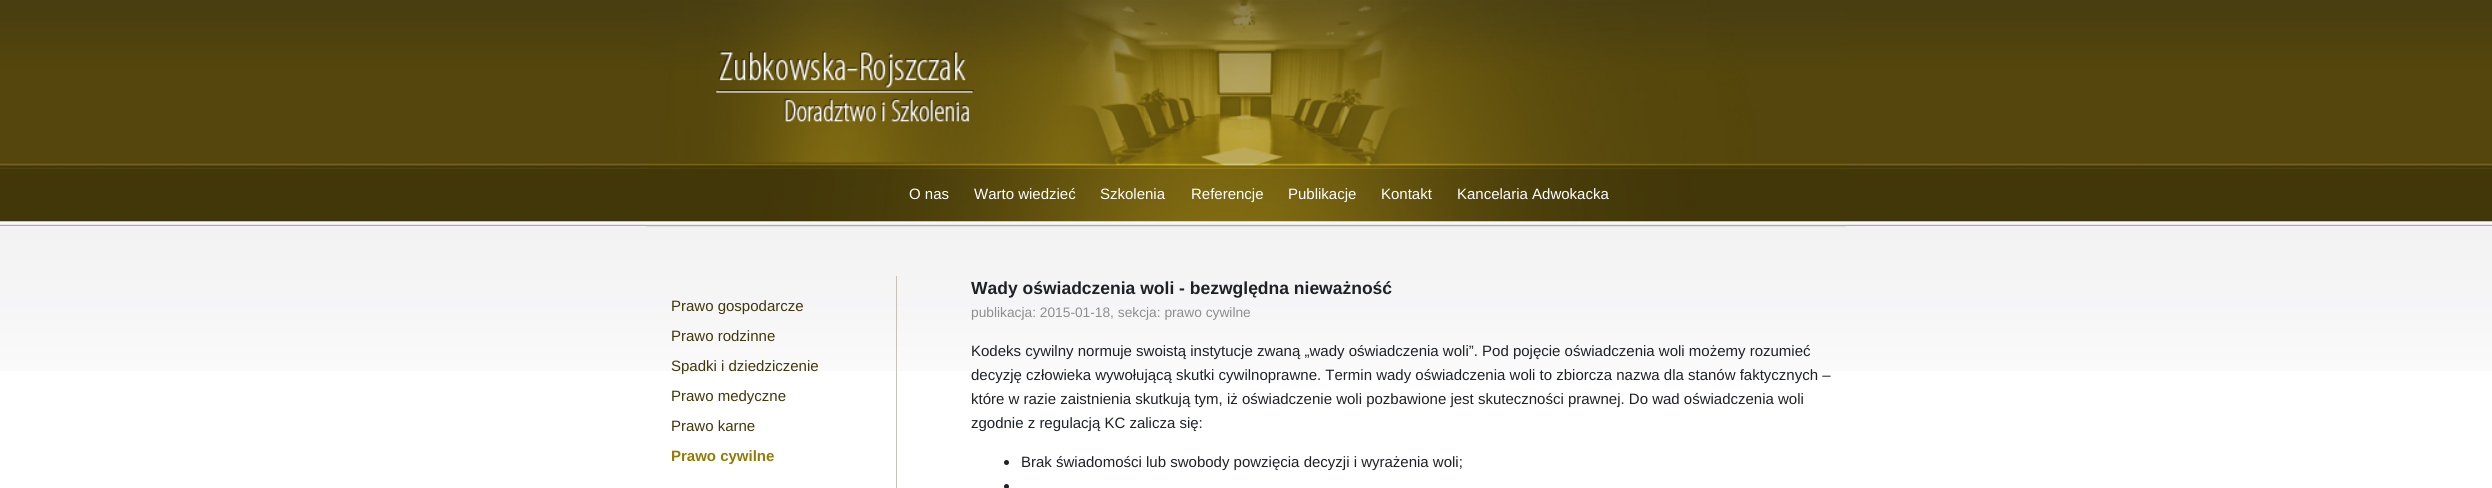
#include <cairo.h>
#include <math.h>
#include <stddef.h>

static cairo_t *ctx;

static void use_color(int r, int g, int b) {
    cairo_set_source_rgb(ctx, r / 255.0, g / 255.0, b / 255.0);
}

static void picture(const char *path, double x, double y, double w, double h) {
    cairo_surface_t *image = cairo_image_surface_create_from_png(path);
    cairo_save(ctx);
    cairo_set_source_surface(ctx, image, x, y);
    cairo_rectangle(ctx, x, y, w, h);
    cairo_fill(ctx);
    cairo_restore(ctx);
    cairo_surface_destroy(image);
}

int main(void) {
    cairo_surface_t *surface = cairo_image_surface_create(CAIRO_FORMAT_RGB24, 2492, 488);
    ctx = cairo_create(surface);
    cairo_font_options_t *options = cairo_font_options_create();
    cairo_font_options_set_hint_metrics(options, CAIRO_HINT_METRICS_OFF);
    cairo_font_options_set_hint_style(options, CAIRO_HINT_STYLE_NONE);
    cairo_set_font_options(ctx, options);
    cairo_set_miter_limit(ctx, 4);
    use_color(255, 255, 255);
    cairo_paint(ctx);
    picture("img1.png", 0, 0, 2492, 226);
    picture("img4.png", 0, 226, 2492, 145);
    picture("img2.png", 646, 0, 1201, 227);
    picture("img3.png", 716, 51, 258, 71);
    cairo_select_font_face(ctx, "Liberation Sans", CAIRO_FONT_SLANT_NORMAL, CAIRO_FONT_WEIGHT_NORMAL);
    cairo_set_font_size(ctx, 15);
    use_color(255, 255, 255);
    cairo_move_to(ctx, 909, 199);
    cairo_show_text(ctx, "O nas");
    cairo_move_to(ctx, 974, 199);
    cairo_show_text(ctx, "Warto wiedzieć");
    cairo_move_to(ctx, 1100, 199);
    cairo_show_text(ctx, "Szkolenia");
    cairo_move_to(ctx, 1191, 199);
    cairo_show_text(ctx, "Referencje");
    cairo_move_to(ctx, 1288, 199);
    cairo_show_text(ctx, "Publikacje");
    cairo_move_to(ctx, 1381, 199);
    cairo_show_text(ctx, "Kontakt");
    cairo_move_to(ctx, 1457, 199);
    cairo_show_text(ctx, "Kancelaria Adwokacka");
    use_color(198, 194, 182);
    cairo_rectangle(ctx, 896, 276, 1, 212);
    cairo_fill(ctx);
    use_color(66, 55, 9);
    cairo_move_to(ctx, 671, 311);
    cairo_show_text(ctx, "Prawo gospodarcze");
    cairo_move_to(ctx, 671, 341);
    cairo_show_text(ctx, "Prawo rodzinne");
    cairo_move_to(ctx, 671, 371);
    cairo_show_text(ctx, "Spadki i dziedziczenie");
    cairo_move_to(ctx, 671, 401);
    cairo_show_text(ctx, "Prawo medyczne");
    cairo_move_to(ctx, 671, 431);
    cairo_show_text(ctx, "Prawo karne");
    cairo_select_font_face(ctx, "Liberation Sans", CAIRO_FONT_SLANT_NORMAL, CAIRO_FONT_WEIGHT_BOLD);
    use_color(149, 123, 4);
    cairo_move_to(ctx, 671, 461);
    cairo_show_text(ctx, "Prawo cywilne");
    cairo_set_font_size(ctx, 17.5);
    use_color(30, 33, 38);
    cairo_move_to(ctx, 971, 294);
    cairo_show_text(ctx, "Wady oświadczenia woli - bezwględna nieważność");
    cairo_select_font_face(ctx, "Liberation Sans", CAIRO_FONT_SLANT_NORMAL, CAIRO_FONT_WEIGHT_NORMAL);
    cairo_set_font_size(ctx, 13.75);
    use_color(142, 142, 142);
    cairo_move_to(ctx, 971, 317);
    cairo_show_text(ctx, "publikacja: 2015-01-18, sekcja: prawo cywilne");
    cairo_set_font_size(ctx, 15);
    use_color(30, 33, 38);
    cairo_move_to(ctx, 971, 356);
    cairo_show_text(ctx, "Kodeks cywilny normuje swoistą instytucje zwaną „wady oświadczenia woli”. Pod pojęcie oświadczenia woli możemy rozumieć");
    cairo_move_to(ctx, 971, 380);
    cairo_show_text(ctx, "decyzję człowieka wywołującą skutki cywilnoprawne. Termin wady oświadczenia woli to zbiorcza nazwa dla stanów faktycznych –");
    cairo_move_to(ctx, 971, 404);
    cairo_show_text(ctx, "które w razie zaistnienia skutkują tym, iż oświadczenie woli pozbawione jest skuteczności prawnej. Do wad oświadczenia woli");
    cairo_move_to(ctx, 971, 428);
    cairo_show_text(ctx, "zgodnie z regulacją KC zalicza się:");
    cairo_new_path(ctx);
    cairo_arc(ctx, 1006.5, 462.5, 2.5, 0, 2 * M_PI);
    cairo_fill(ctx);
    cairo_move_to(ctx, 1021, 467);
    cairo_show_text(ctx, "Brak świadomości lub swobody powzięcia decyzji i wyrażenia woli;");
    cairo_new_path(ctx);
    cairo_arc(ctx, 1006.5, 486.5, 2.5, 0, 2 * M_PI);
    cairo_fill(ctx);
    cairo_surface_write_to_png(surface, "result.png");
    cairo_font_options_destroy(options);
    cairo_destroy(ctx);
    cairo_surface_destroy(surface);
    return 0;
}
